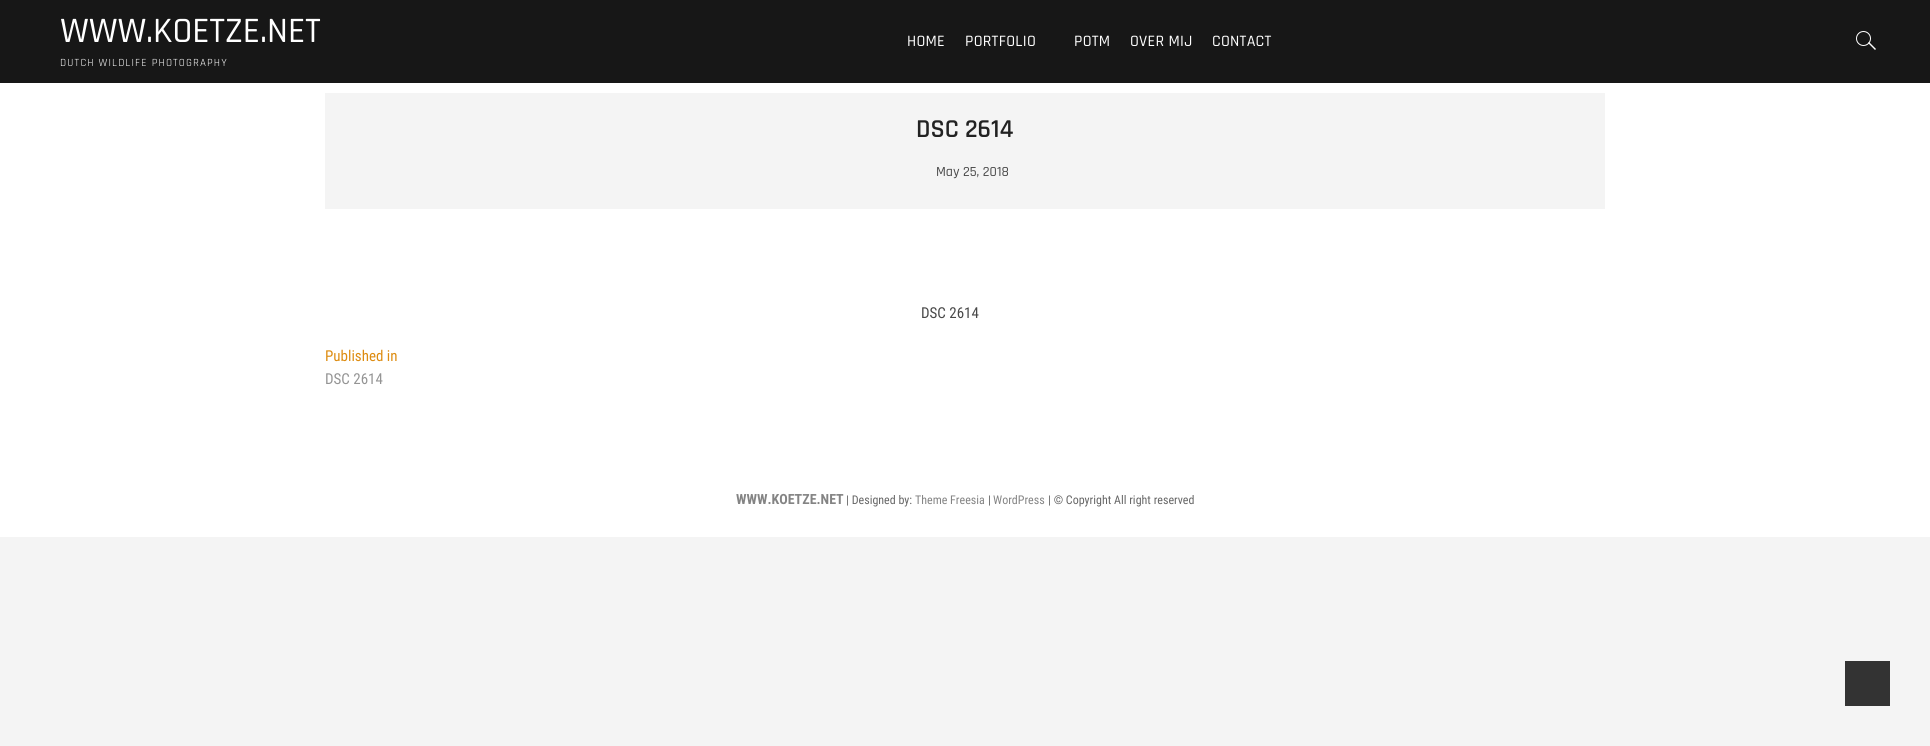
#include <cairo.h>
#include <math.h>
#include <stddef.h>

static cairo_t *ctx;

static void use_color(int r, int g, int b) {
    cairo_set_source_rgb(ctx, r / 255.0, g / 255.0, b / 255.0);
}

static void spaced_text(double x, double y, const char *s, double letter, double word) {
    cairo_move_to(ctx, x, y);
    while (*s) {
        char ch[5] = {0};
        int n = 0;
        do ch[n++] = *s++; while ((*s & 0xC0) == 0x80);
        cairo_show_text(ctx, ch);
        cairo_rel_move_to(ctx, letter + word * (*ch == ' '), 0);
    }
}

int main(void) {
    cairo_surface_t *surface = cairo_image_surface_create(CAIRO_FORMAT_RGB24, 1930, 746);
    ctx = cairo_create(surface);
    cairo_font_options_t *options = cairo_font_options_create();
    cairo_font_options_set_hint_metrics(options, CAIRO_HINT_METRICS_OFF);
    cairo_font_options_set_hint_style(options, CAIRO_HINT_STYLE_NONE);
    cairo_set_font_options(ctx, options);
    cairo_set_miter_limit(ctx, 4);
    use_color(244, 244, 244);
    cairo_paint(ctx);
    use_color(255, 255, 255);
    cairo_rectangle(ctx, 0, 83, 1930, 454);
    cairo_fill(ctx);
    use_color(23, 23, 23);
    cairo_rectangle(ctx, 0, 0, 1930, 83);
    cairo_fill(ctx);
    cairo_select_font_face(ctx, "Rajdhani Medium", CAIRO_FONT_SLANT_NORMAL, CAIRO_FONT_WEIGHT_NORMAL);
    cairo_set_font_size(ctx, 36);
    use_color(255, 255, 255);
    cairo_move_to(ctx, 60, 42);
    cairo_show_text(ctx, "WWW.KOETZE.NET");
    cairo_select_font_face(ctx, "Rajdhani", CAIRO_FONT_SLANT_NORMAL, CAIRO_FONT_WEIGHT_NORMAL);
    cairo_set_font_size(ctx, 11);
    spaced_text(60, 66, "DUTCH WILDLIFE PHOTOGRAPHY", 1.1, 0);
    cairo_select_font_face(ctx, "Rajdhani Medium", CAIRO_FONT_SLANT_NORMAL, CAIRO_FONT_WEIGHT_NORMAL);
    cairo_set_font_size(ctx, 16);
    spaced_text(907, 46, "HOME", 0.25, 0);
    spaced_text(965, 46, "PORTFOLIO", 0.25, 0);
    spaced_text(1074, 46, "POTM", 0.25, 0);
    spaced_text(1130, 46, "OVER MIJ", 0.25, 0);
    spaced_text(1212, 46, "CONTACT", 0.25, 0);
    cairo_new_path(ctx);
    cairo_arc(ctx, 1863.5, 38.5, 7, 0, 2 * M_PI);
    cairo_set_line_width(ctx, 1);
    cairo_stroke(ctx);
    cairo_new_path(ctx);
    cairo_move_to(ctx, 1868, 43);
    cairo_line_to(ctx, 1869, 42);
    cairo_line_to(ctx, 1876, 49);
    cairo_line_to(ctx, 1875, 50);
    cairo_close_path(ctx);
    cairo_fill(ctx);
    use_color(244, 244, 244);
    cairo_rectangle(ctx, 325, 93, 1280, 116);
    cairo_fill(ctx);
    cairo_select_font_face(ctx, "Rajdhani SemiBold", CAIRO_FONT_SLANT_NORMAL, CAIRO_FONT_WEIGHT_NORMAL);
    cairo_set_font_size(ctx, 26);
    use_color(34, 34, 34);
    cairo_move_to(ctx, 916, 137);
    cairo_show_text(ctx, "DSC 2614");
    cairo_select_font_face(ctx, "Rajdhani Medium", CAIRO_FONT_SLANT_NORMAL, CAIRO_FONT_WEIGHT_NORMAL);
    cairo_set_font_size(ctx, 14);
    use_color(72, 72, 72);
    cairo_move_to(ctx, 936, 176);
    cairo_show_text(ctx, "May 25, 2018");
    cairo_select_font_face(ctx, "Roboto Condensed", CAIRO_FONT_SLANT_NORMAL, CAIRO_FONT_WEIGHT_NORMAL);
    cairo_set_font_size(ctx, 15);
    cairo_move_to(ctx, 921, 318);
    cairo_show_text(ctx, "DSC 2614");
    use_color(221, 140, 17);
    cairo_move_to(ctx, 325, 361);
    cairo_show_text(ctx, "Published in");
    use_color(148, 148, 148);
    cairo_move_to(ctx, 325, 384);
    cairo_show_text(ctx, "DSC 2614");
    cairo_select_font_face(ctx, "Roboto Condensed", CAIRO_FONT_SLANT_NORMAL, CAIRO_FONT_WEIGHT_BOLD);
    cairo_set_font_size(ctx, 14);
    use_color(132, 132, 132);
    cairo_move_to(ctx, 736, 504);
    cairo_show_text(ctx, "WWW.KOETZE.NET");
    cairo_select_font_face(ctx, "Roboto Condensed", CAIRO_FONT_SLANT_NORMAL, CAIRO_FONT_WEIGHT_NORMAL);
    cairo_set_font_size(ctx, 12);
    use_color(102, 102, 102);
    cairo_move_to(ctx, 846, 504);
    cairo_show_text(ctx, "| Designed by:");
    use_color(132, 132, 132);
    cairo_move_to(ctx, 915, 504);
    cairo_show_text(ctx, "Theme Freesia");
    use_color(102, 102, 102);
    cairo_move_to(ctx, 988, 504);
    cairo_show_text(ctx, "|");
    use_color(132, 132, 132);
    cairo_move_to(ctx, 993, 504);
    cairo_show_text(ctx, "WordPress");
    use_color(102, 102, 102);
    cairo_move_to(ctx, 1048, 504);
    cairo_show_text(ctx, "| © Copyright All right reserved");
    use_color(51, 51, 51);
    cairo_rectangle(ctx, 1845, 661, 45, 45);
    cairo_fill(ctx);
    cairo_surface_write_to_png(surface, "result.png");
    cairo_font_options_destroy(options);
    cairo_destroy(ctx);
    cairo_surface_destroy(surface);
    return 0;
}
